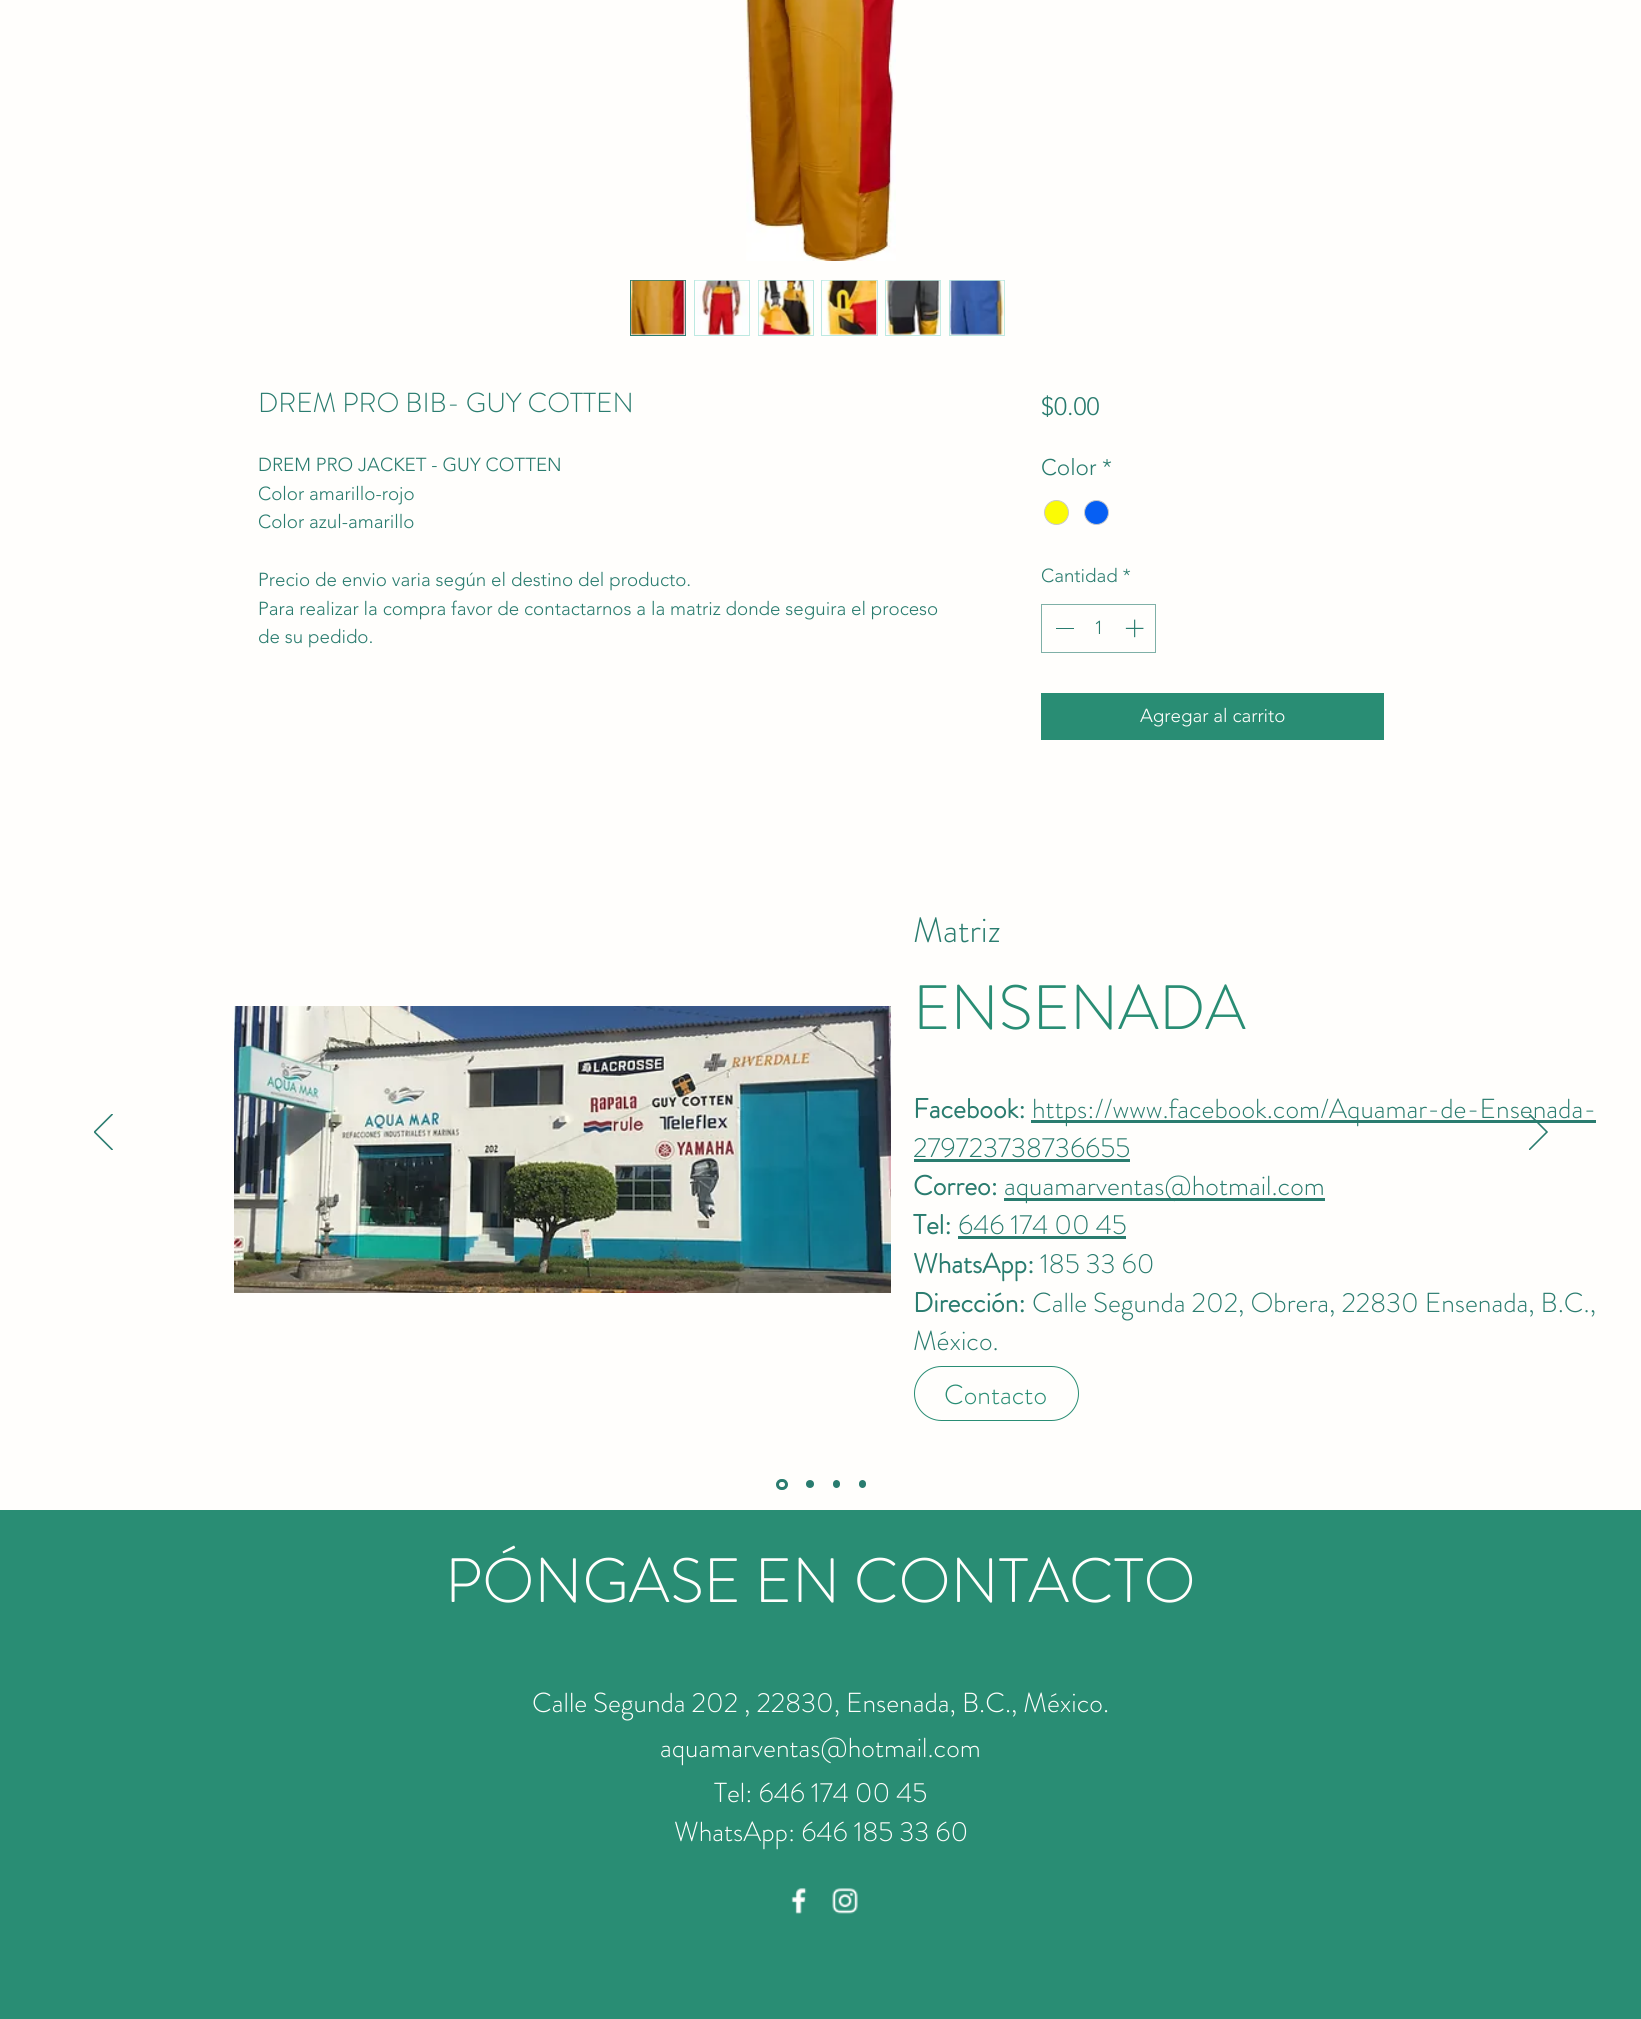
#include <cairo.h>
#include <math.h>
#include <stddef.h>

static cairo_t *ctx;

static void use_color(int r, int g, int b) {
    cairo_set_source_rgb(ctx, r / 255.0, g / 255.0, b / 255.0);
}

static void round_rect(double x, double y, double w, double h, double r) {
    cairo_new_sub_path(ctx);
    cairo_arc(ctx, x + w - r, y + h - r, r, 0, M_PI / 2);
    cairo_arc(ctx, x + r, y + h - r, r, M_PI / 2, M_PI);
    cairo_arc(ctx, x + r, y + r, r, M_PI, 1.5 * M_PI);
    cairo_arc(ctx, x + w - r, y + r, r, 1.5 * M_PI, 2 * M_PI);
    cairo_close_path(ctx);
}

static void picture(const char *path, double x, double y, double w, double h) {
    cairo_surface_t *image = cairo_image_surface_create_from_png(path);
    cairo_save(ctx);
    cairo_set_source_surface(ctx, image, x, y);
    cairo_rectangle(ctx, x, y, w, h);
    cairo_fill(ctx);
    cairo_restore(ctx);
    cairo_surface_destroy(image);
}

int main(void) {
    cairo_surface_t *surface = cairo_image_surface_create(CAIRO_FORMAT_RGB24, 1641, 2019);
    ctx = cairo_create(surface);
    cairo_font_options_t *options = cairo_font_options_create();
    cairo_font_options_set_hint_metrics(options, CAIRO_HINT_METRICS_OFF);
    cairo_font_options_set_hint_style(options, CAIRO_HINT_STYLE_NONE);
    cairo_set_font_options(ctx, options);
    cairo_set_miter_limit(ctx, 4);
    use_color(255, 254, 252);
    cairo_paint(ctx);
    picture("img1.png", 746, 0, 150, 261);
    cairo_rectangle(ctx, 630.5, 280.5, 55, 55);
    use_color(42, 124, 111);
    cairo_set_line_width(ctx, 1);
    cairo_stroke(ctx);
    picture("img2.png", 631, 280, 55, 55);
    cairo_rectangle(ctx, 694.5, 280.5, 55, 55);
    use_color(189, 233, 226);
    cairo_stroke(ctx);
    picture("img3.png", 695, 280, 55, 55);
    cairo_rectangle(ctx, 758.5, 280.5, 55, 55);
    cairo_stroke(ctx);
    picture("img4.png", 758, 280, 55, 55);
    cairo_rectangle(ctx, 821.5, 280.5, 56, 55);
    cairo_stroke(ctx);
    picture("img5.png", 822, 280, 55, 55);
    cairo_rectangle(ctx, 885.5, 280.5, 55, 55);
    cairo_stroke(ctx);
    picture("img6.png", 886, 280, 55, 55);
    cairo_rectangle(ctx, 949.5, 280.5, 55, 55);
    cairo_stroke(ctx);
    picture("img7.png", 950, 280, 55, 55);
    cairo_select_font_face(ctx, "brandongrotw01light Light", CAIRO_FONT_SLANT_NORMAL, CAIRO_FONT_WEIGHT_NORMAL);
    cairo_set_font_size(ctx, 27.5);
    use_color(42, 124, 111);
    cairo_move_to(ctx, 258, 412);
    cairo_show_text(ctx, "DREM PRO BIB- GUY COTTEN");
    cairo_select_font_face(ctx, "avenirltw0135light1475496 Light", CAIRO_FONT_SLANT_NORMAL, CAIRO_FONT_WEIGHT_NORMAL);
    cairo_set_font_size(ctx, 18.75);
    cairo_move_to(ctx, 258, 471);
    cairo_show_text(ctx, "DREM PRO JACKET - GUY COTTEN");
    cairo_move_to(ctx, 258, 500);
    cairo_show_text(ctx, "Color amarillo-rojo");
    cairo_move_to(ctx, 258, 528);
    cairo_show_text(ctx, "Color azul-amarillo");
    cairo_move_to(ctx, 258, 586);
    cairo_show_text(ctx, "Precio de envio varia según el destino del producto.");
    cairo_move_to(ctx, 258, 615);
    cairo_show_text(ctx, "Para realizar la compra favor de contactarnos a la matriz donde seguira el proceso");
    cairo_move_to(ctx, 258, 643);
    cairo_show_text(ctx, "de su pedido.");
    cairo_set_font_size(ctx, 25);
    cairo_move_to(ctx, 1041, 415);
    cairo_show_text(ctx, "$0.00");
    cairo_set_font_size(ctx, 22.5);
    cairo_move_to(ctx, 1041, 475);
    cairo_show_text(ctx, "Color");
    cairo_move_to(ctx, 1102, 475);
    cairo_show_text(ctx, "*");
    use_color(251, 251, 5);
    cairo_new_path(ctx);
    cairo_arc(ctx, 1056.5, 512.5, 12, 0, 2 * M_PI);
    cairo_fill_preserve(ctx);
    use_color(201, 201, 201);
    cairo_stroke(ctx);
    use_color(6, 95, 243);
    cairo_arc(ctx, 1096.5, 512.5, 12, 0, 2 * M_PI);
    cairo_fill_preserve(ctx);
    use_color(201, 201, 201);
    cairo_stroke(ctx);
    cairo_set_font_size(ctx, 18.75);
    use_color(42, 124, 111);
    cairo_move_to(ctx, 1041, 582);
    cairo_show_text(ctx, "Cantidad *");
    cairo_rectangle(ctx, 1041.5, 604.5, 114, 48);
    use_color(127, 176, 167);
    cairo_stroke(ctx);
    use_color(42, 124, 111);
    cairo_rectangle(ctx, 1056, 628, 18, 1);
    cairo_fill(ctx);
    cairo_move_to(ctx, 1094, 634);
    cairo_show_text(ctx, "1");
    picture("img8.png", 1125, 619, 19, 19);
    use_color(41, 141, 116);
    cairo_rectangle(ctx, 1041, 693, 343, 47);
    cairo_fill(ctx);
    use_color(255, 254, 252);
    cairo_move_to(ctx, 1140, 722);
    cairo_show_text(ctx, "Agregar al carrito");
    cairo_save(ctx);
    cairo_rectangle(ctx, 94, 1114, 19, 36);
    cairo_clip(ctx);
    cairo_new_path(ctx);
    cairo_move_to(ctx, 112, 1150);
    cairo_line_to(ctx, 94, 1132);
    cairo_line_to(ctx, 112, 1114);
    cairo_line_to(ctx, 112.5, 1114.5);
    cairo_line_to(ctx, 95, 1132);
    cairo_line_to(ctx, 112.5, 1149.5);
    cairo_close_path(ctx);
    use_color(42, 124, 111);
    cairo_set_line_width(ctx, 0.9);
    cairo_stroke(ctx);
    cairo_restore(ctx);
    cairo_select_font_face(ctx, "brandongrotw01light Light", CAIRO_FONT_SLANT_NORMAL, CAIRO_FONT_WEIGHT_NORMAL);
    cairo_set_font_size(ctx, 35);
    use_color(42, 124, 111);
    cairo_move_to(ctx, 913, 942);
    cairo_show_text(ctx, "Matriz");
    picture("img9.png", 234, 1006, 657, 287);
    cairo_set_font_size(ctx, 62.5);
    use_color(41, 141, 116);
    cairo_move_to(ctx, 913, 1029);
    cairo_show_text(ctx, "ENSENADA");
    cairo_select_font_face(ctx, "brandongrotw01light", CAIRO_FONT_SLANT_NORMAL, CAIRO_FONT_WEIGHT_BOLD);
    cairo_set_font_size(ctx, 27.5);
    use_color(42, 124, 111);
    cairo_move_to(ctx, 913, 1118);
    cairo_show_text(ctx, "Facebook:");
    cairo_rectangle(ctx, 1031, 1120, 565, 3);
    cairo_fill(ctx);
    cairo_select_font_face(ctx, "brandongrotw01light Light", CAIRO_FONT_SLANT_NORMAL, CAIRO_FONT_WEIGHT_NORMAL);
    cairo_move_to(ctx, 1032, 1118);
    cairo_show_text(ctx, "https://www.facebook.com/Aquamar-de-Ensenada-");
    cairo_move_to(ctx, 913, 1157);
    cairo_show_text(ctx, "279723738736655");
    cairo_rectangle(ctx, 914, 1159, 216, 3);
    cairo_fill(ctx);
    cairo_select_font_face(ctx, "brandongrotw01light", CAIRO_FONT_SLANT_NORMAL, CAIRO_FONT_WEIGHT_BOLD);
    cairo_move_to(ctx, 913, 1195);
    cairo_show_text(ctx, "Correo:");
    cairo_rectangle(ctx, 1004, 1198, 321, 3);
    cairo_fill(ctx);
    cairo_select_font_face(ctx, "brandongrotw01light Light", CAIRO_FONT_SLANT_NORMAL, CAIRO_FONT_WEIGHT_NORMAL);
    cairo_move_to(ctx, 1004, 1195);
    cairo_show_text(ctx, "aquamarventas@hotmail.com");
    cairo_select_font_face(ctx, "brandongrotw01light", CAIRO_FONT_SLANT_NORMAL, CAIRO_FONT_WEIGHT_BOLD);
    cairo_move_to(ctx, 913, 1234);
    cairo_show_text(ctx, "Tel:");
    cairo_select_font_face(ctx, "brandongrotw01light Light", CAIRO_FONT_SLANT_NORMAL, CAIRO_FONT_WEIGHT_NORMAL);
    cairo_move_to(ctx, 958, 1234);
    cairo_show_text(ctx, "646 174 00 45");
    cairo_rectangle(ctx, 958, 1236, 168, 3);
    cairo_fill(ctx);
    cairo_select_font_face(ctx, "brandongrotw01light", CAIRO_FONT_SLANT_NORMAL, CAIRO_FONT_WEIGHT_BOLD);
    cairo_move_to(ctx, 913, 1273);
    cairo_show_text(ctx, "WhatsApp:");
    cairo_select_font_face(ctx, "brandongrotw01light Light", CAIRO_FONT_SLANT_NORMAL, CAIRO_FONT_WEIGHT_NORMAL);
    cairo_move_to(ctx, 1040, 1273);
    cairo_show_text(ctx, "185 33 60");
    cairo_select_font_face(ctx, "brandongrotw01light", CAIRO_FONT_SLANT_NORMAL, CAIRO_FONT_WEIGHT_BOLD);
    cairo_move_to(ctx, 913, 1312);
    cairo_show_text(ctx, "Dirección:");
    cairo_select_font_face(ctx, "brandongrotw01light Light", CAIRO_FONT_SLANT_NORMAL, CAIRO_FONT_WEIGHT_NORMAL);
    cairo_move_to(ctx, 1032, 1312);
    cairo_show_text(ctx, "Calle Segunda 202, Obrera, 22830 Ensenada, B.C.,");
    cairo_move_to(ctx, 913, 1350);
    cairo_show_text(ctx, "México.");
    round_rect(914.5, 1366.5, 164, 54, 27);
    use_color(41, 141, 116);
    cairo_stroke(ctx);
    cairo_move_to(ctx, 944, 1404);
    cairo_show_text(ctx, "Contacto");
    cairo_save(ctx);
    cairo_rectangle(ctx, 1529, 1114, 19, 36);
    cairo_clip(ctx);
    cairo_new_path(ctx);
    cairo_move_to(ctx, 1529.5, 1150);
    cairo_line_to(ctx, 1547.5, 1132);
    cairo_line_to(ctx, 1529.5, 1114);
    cairo_line_to(ctx, 1529, 1114.5);
    cairo_line_to(ctx, 1546.5, 1132);
    cairo_line_to(ctx, 1529, 1149.5);
    cairo_close_path(ctx);
    use_color(42, 124, 111);
    cairo_set_line_width(ctx, 0.9);
    cairo_stroke(ctx);
    cairo_restore(ctx);
    round_rect(777.5, 1480.5, 9, 8, 4);
    use_color(42, 124, 111);
    cairo_set_line_width(ctx, 3);
    cairo_stroke(ctx);
    cairo_arc(ctx, 810, 1484, 4, 0, 2 * M_PI);
    cairo_fill(ctx);
    round_rect(833, 1480, 7, 8, 3.5);
    cairo_fill(ctx);
    round_rect(859, 1480, 7, 8, 3.5);
    cairo_fill(ctx);
    use_color(41, 141, 116);
    cairo_rectangle(ctx, 0, 1510, 1641, 509);
    cairo_fill(ctx);
    cairo_set_font_size(ctx, 62.5);
    use_color(255, 254, 252);
    cairo_move_to(ctx, 445, 1602);
    cairo_show_text(ctx, "PÓNGASE EN CONTACTO");
    cairo_set_font_size(ctx, 27.5);
    cairo_move_to(ctx, 532, 1712);
    cairo_show_text(ctx, "Calle Segunda 202 , 22830, Ensenada, B.C., México.");
    cairo_move_to(ctx, 660, 1757);
    cairo_show_text(ctx, "aquamarventas@hotmail.com");
    cairo_move_to(ctx, 714, 1802);
    cairo_show_text(ctx, "Tel: 646 174 00 45");
    cairo_move_to(ctx, 674, 1841);
    cairo_show_text(ctx, "WhatsApp: 646 185 33 60");
    picture("img10.png", 791, 1888, 16, 26);
    picture("img11.png", 832, 1888, 26, 26);
    cairo_surface_write_to_png(surface, "result.png");
    cairo_font_options_destroy(options);
    cairo_destroy(ctx);
    cairo_surface_destroy(surface);
    return 0;
}
